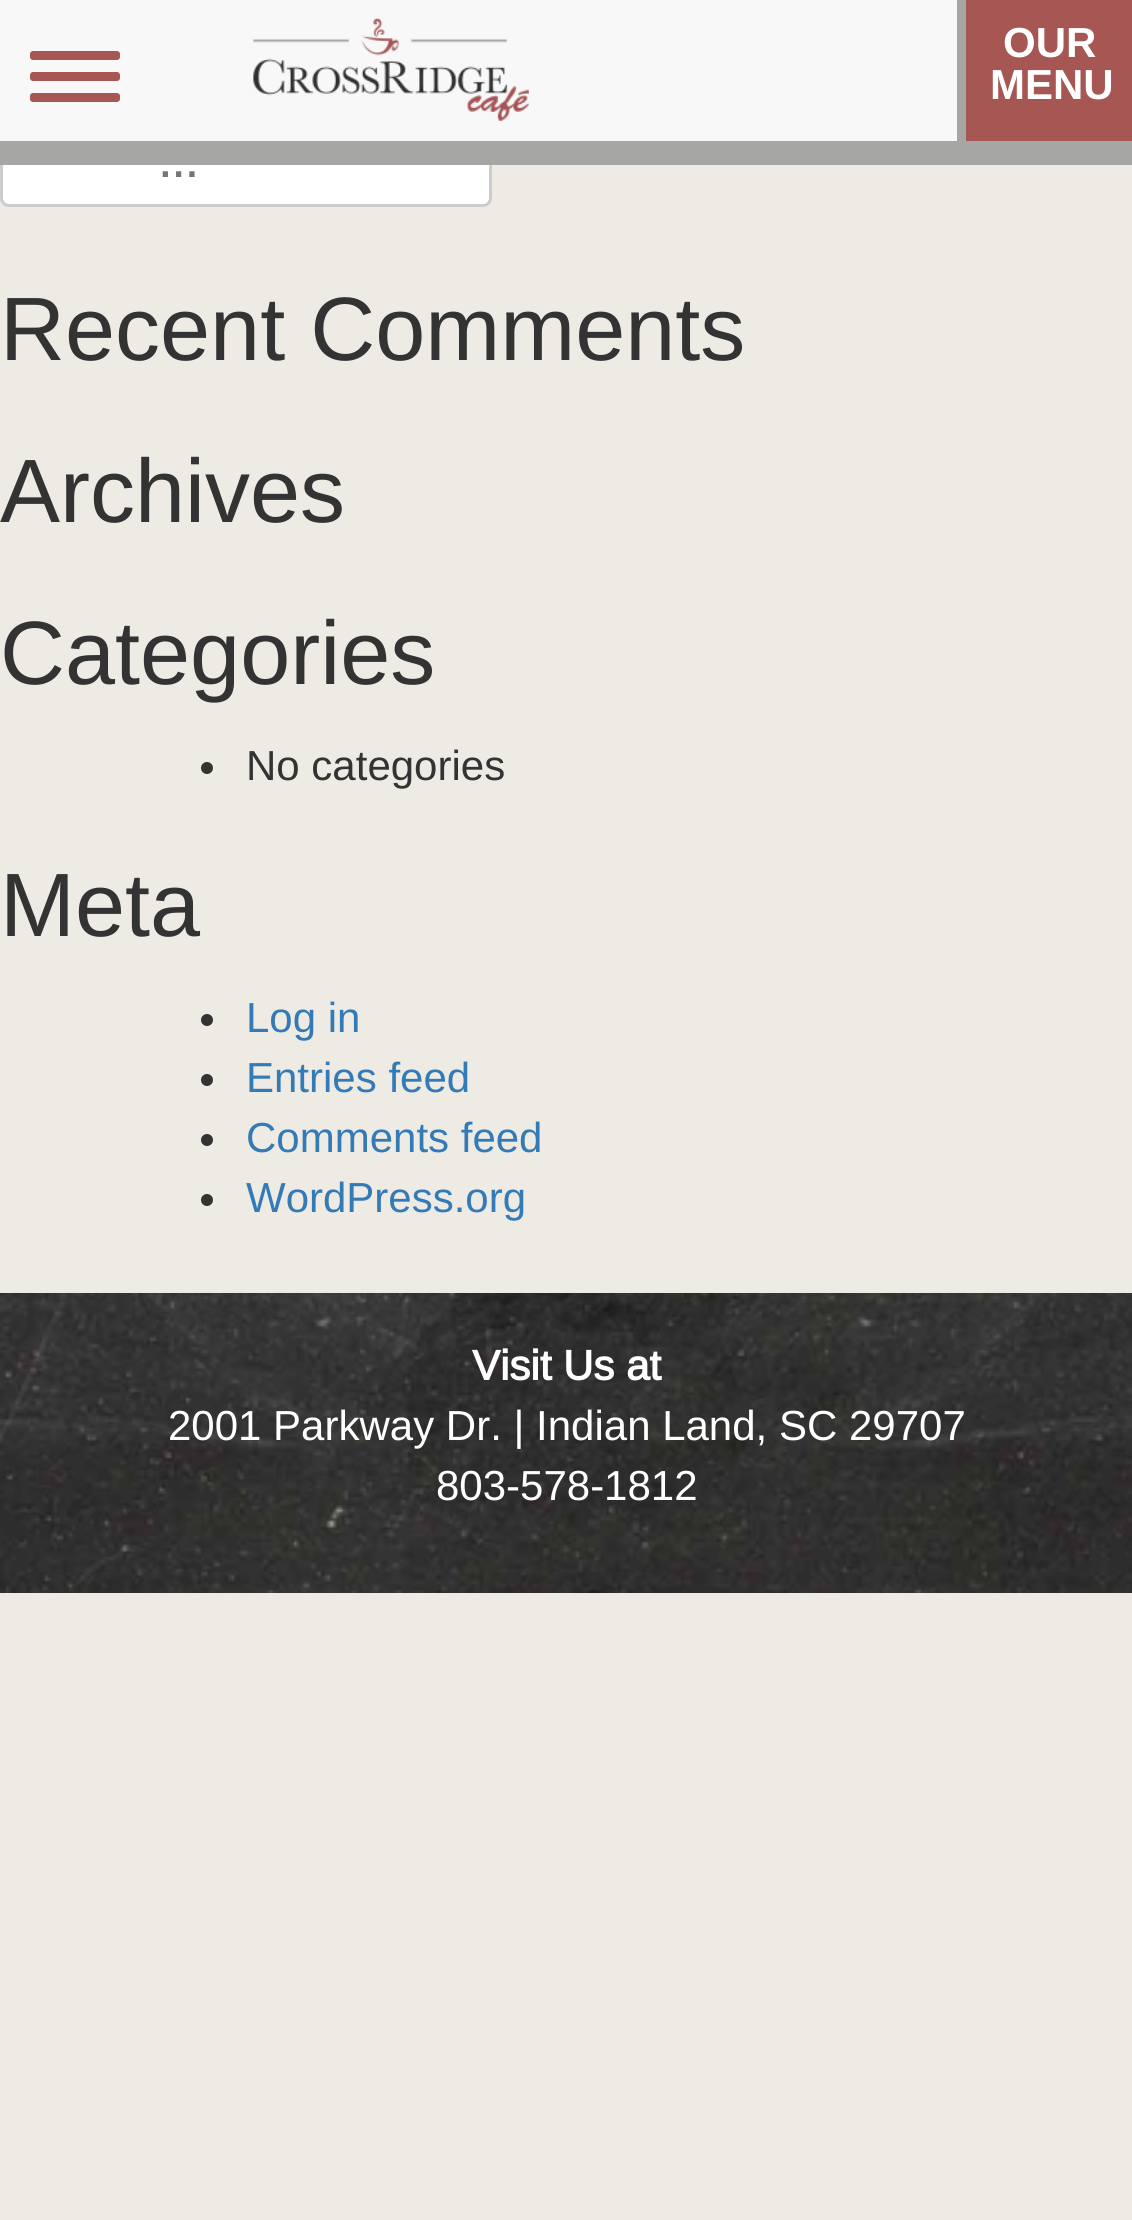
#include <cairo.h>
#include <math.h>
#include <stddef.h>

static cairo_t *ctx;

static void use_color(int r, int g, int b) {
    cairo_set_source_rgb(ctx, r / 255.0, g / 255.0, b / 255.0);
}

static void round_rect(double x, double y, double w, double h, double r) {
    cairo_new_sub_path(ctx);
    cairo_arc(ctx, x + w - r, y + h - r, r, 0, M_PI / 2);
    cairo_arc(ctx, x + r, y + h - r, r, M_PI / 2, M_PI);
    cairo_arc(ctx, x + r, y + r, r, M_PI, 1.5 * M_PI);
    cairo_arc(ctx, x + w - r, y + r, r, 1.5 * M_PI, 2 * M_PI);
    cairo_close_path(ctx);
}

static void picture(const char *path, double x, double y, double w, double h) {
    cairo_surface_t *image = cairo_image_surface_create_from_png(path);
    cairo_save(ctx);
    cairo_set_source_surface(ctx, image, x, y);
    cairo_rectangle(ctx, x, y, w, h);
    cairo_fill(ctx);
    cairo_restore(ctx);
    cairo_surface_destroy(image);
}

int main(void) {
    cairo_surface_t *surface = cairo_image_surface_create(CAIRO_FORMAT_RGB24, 1132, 2220);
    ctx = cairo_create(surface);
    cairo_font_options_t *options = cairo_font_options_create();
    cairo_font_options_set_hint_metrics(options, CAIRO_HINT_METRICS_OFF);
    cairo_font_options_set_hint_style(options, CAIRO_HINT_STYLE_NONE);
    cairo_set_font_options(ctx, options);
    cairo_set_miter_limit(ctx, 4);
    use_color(238, 235, 228);
    cairo_paint(ctx);
    use_color(255, 255, 255);
    round_rect(1.5, 124.5, 489, 81, 7.5);
    cairo_fill_preserve(ctx);
    use_color(204, 204, 204);
    cairo_set_line_width(ctx, 3);
    cairo_stroke(ctx);
    use_color(248, 248, 248);
    cairo_rectangle(ctx, 0, 0, 957, 141);
    cairo_fill(ctx);
    use_color(166, 166, 165);
    cairo_rectangle(ctx, 0, 141, 1132, 24);
    cairo_fill(ctx);
    use_color(166, 86, 83);
    round_rect(30, 51, 90, 9, 3);
    cairo_fill(ctx);
    round_rect(30, 72, 90, 9, 3);
    cairo_fill(ctx);
    round_rect(30, 93, 90, 9, 3);
    cairo_fill(ctx);
    picture("img1.png", 253, 18, 276, 103);
    cairo_rectangle(ctx, 966, 0, 166, 141);
    cairo_fill(ctx);
    use_color(166, 166, 165);
    cairo_rectangle(ctx, 957, 0, 9, 141);
    cairo_fill(ctx);
    cairo_select_font_face(ctx, "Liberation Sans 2", CAIRO_FONT_SLANT_NORMAL, CAIRO_FONT_WEIGHT_BOLD);
    cairo_set_font_size(ctx, 42);
    use_color(255, 255, 255);
    cairo_move_to(ctx, 1003, 57);
    cairo_show_text(ctx, "OUR");
    cairo_move_to(ctx, 990, 99);
    cairo_show_text(ctx, "MENU");
    cairo_select_font_face(ctx, "Liberation Sans", CAIRO_FONT_SLANT_NORMAL, CAIRO_FONT_WEIGHT_BOLD);
    use_color(117, 117, 117);
    cairo_move_to(ctx, 157, 177);
    cairo_show_text(ctx, "…");
    cairo_select_font_face(ctx, "Liberation Sans", CAIRO_FONT_SLANT_NORMAL, CAIRO_FONT_WEIGHT_NORMAL);
    cairo_set_font_size(ctx, 90);
    use_color(51, 51, 51);
    cairo_move_to(ctx, 0, 360);
    cairo_show_text(ctx, "Recent Comments");
    cairo_move_to(ctx, 0, 522);
    cairo_show_text(ctx, "Archives");
    cairo_move_to(ctx, 0, 684);
    cairo_show_text(ctx, "Categories");
    cairo_new_path(ctx);
    cairo_arc(ctx, 207, 768, 6, 0, 2 * M_PI);
    cairo_fill(ctx);
    cairo_set_font_size(ctx, 42);
    cairo_move_to(ctx, 246, 780);
    cairo_show_text(ctx, "No categories");
    cairo_set_font_size(ctx, 90);
    cairo_move_to(ctx, 0, 936);
    cairo_show_text(ctx, "Meta");
    cairo_new_path(ctx);
    cairo_arc(ctx, 207, 1020, 6, 0, 2 * M_PI);
    cairo_fill(ctx);
    cairo_set_font_size(ctx, 42);
    use_color(51, 122, 183);
    cairo_move_to(ctx, 246, 1032);
    cairo_show_text(ctx, "Log in");
    use_color(51, 51, 51);
    cairo_new_path(ctx);
    cairo_arc(ctx, 207, 1080, 6, 0, 2 * M_PI);
    cairo_fill(ctx);
    use_color(51, 122, 183);
    cairo_move_to(ctx, 246, 1092);
    cairo_show_text(ctx, "Entries feed");
    use_color(51, 51, 51);
    cairo_new_path(ctx);
    cairo_arc(ctx, 207, 1140, 6, 0, 2 * M_PI);
    cairo_fill(ctx);
    use_color(51, 122, 183);
    cairo_move_to(ctx, 246, 1152);
    cairo_show_text(ctx, "Comments feed");
    use_color(51, 51, 51);
    cairo_new_path(ctx);
    cairo_arc(ctx, 207, 1200, 6, 0, 2 * M_PI);
    cairo_fill(ctx);
    use_color(51, 122, 183);
    cairo_move_to(ctx, 246, 1212);
    cairo_show_text(ctx, "WordPress.org");
    picture("img2.png", 0, 1293, 1132, 300);
    cairo_select_font_face(ctx, "Liberation Sans", CAIRO_FONT_SLANT_NORMAL, CAIRO_FONT_WEIGHT_BOLD);
    use_color(255, 255, 255);
    cairo_move_to(ctx, 472, 1380);
    cairo_show_text(ctx, "Visit Us at");
    cairo_select_font_face(ctx, "Liberation Sans", CAIRO_FONT_SLANT_NORMAL, CAIRO_FONT_WEIGHT_NORMAL);
    cairo_move_to(ctx, 168, 1440);
    cairo_show_text(ctx, "2001 Parkway Dr. | Indian Land, SC 29707");
    cairo_move_to(ctx, 436, 1500);
    cairo_show_text(ctx, "803-578-1812");
    cairo_surface_write_to_png(surface, "result.png");
    cairo_font_options_destroy(options);
    cairo_destroy(ctx);
    cairo_surface_destroy(surface);
    return 0;
}
